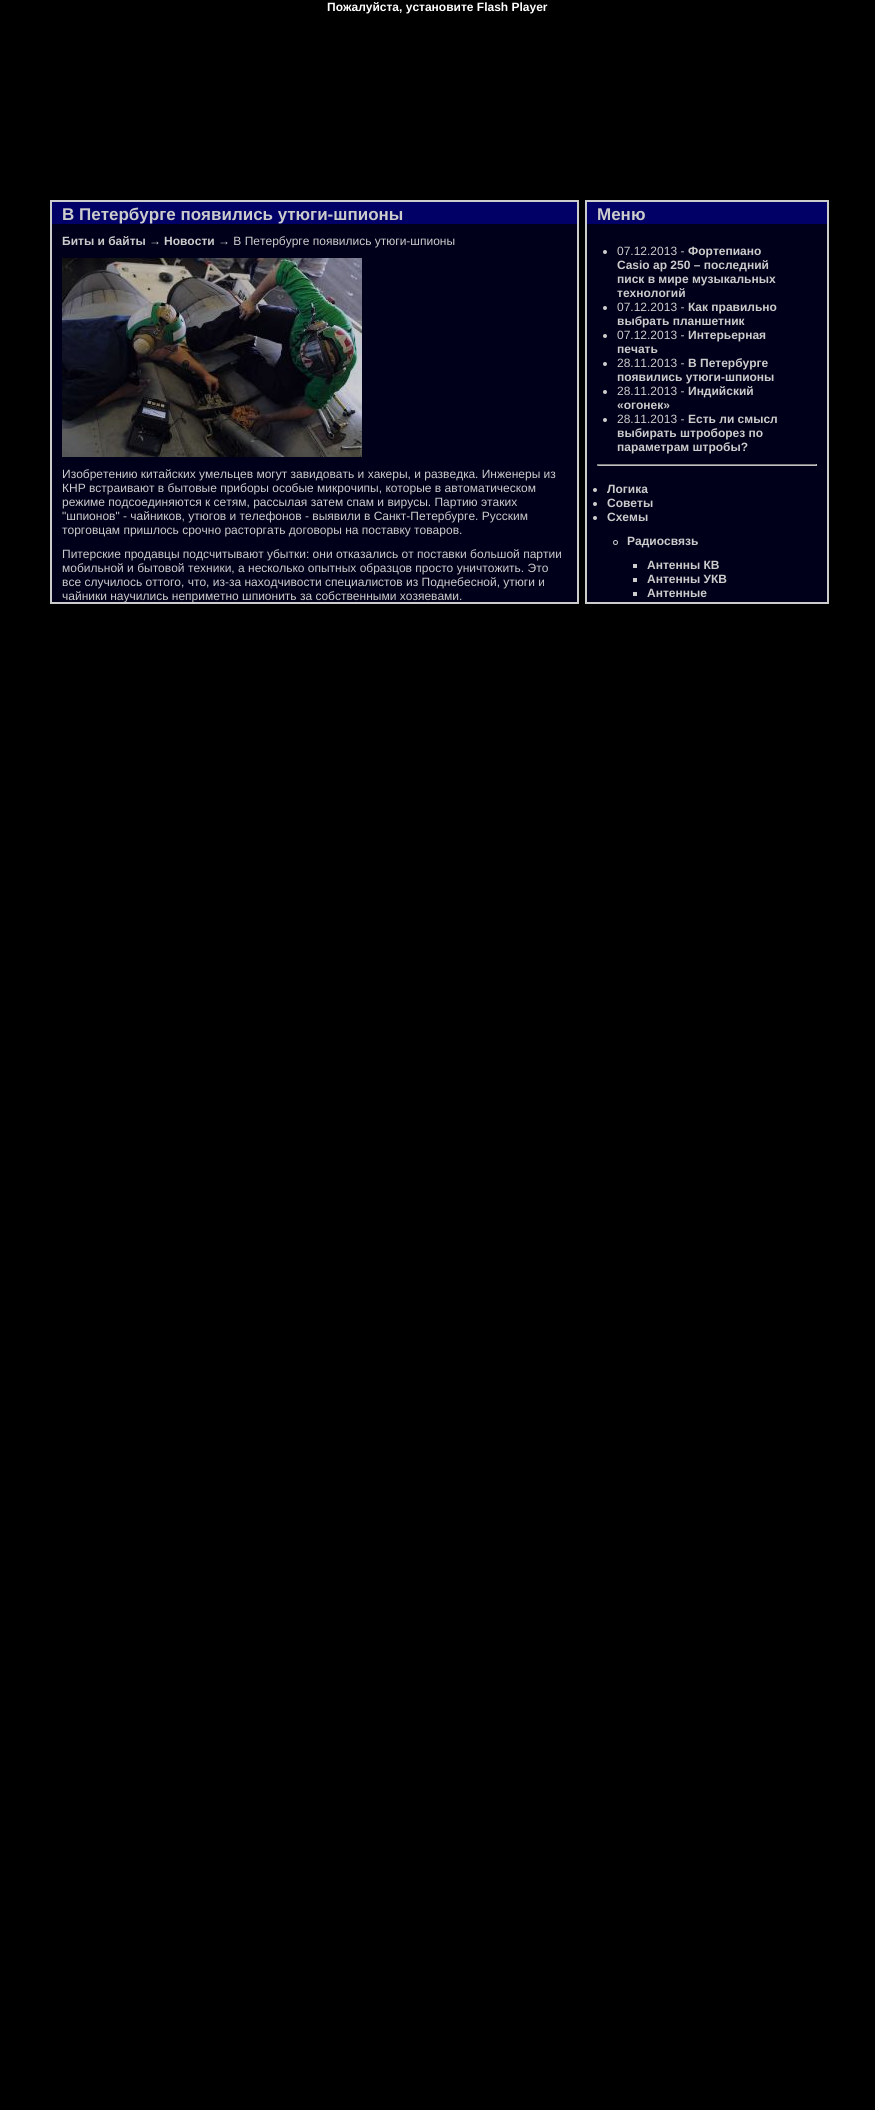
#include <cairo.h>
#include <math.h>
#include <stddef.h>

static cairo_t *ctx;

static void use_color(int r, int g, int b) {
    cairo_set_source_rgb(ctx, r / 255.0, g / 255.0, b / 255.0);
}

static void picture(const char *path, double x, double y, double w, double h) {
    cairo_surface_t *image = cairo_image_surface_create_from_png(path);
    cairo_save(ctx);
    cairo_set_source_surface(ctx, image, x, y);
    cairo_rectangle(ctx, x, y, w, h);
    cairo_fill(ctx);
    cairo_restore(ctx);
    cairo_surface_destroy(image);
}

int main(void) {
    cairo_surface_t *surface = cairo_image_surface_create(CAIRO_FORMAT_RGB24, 875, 2110);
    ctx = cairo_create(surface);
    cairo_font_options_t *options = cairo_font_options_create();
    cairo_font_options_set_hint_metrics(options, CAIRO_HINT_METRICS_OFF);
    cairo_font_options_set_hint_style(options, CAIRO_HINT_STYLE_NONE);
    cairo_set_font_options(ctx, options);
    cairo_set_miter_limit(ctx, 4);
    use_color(0, 0, 0);
    cairo_paint(ctx);
    cairo_select_font_face(ctx, "Liberation Sans", CAIRO_FONT_SLANT_NORMAL, CAIRO_FONT_WEIGHT_BOLD);
    cairo_set_font_size(ctx, 12);
    use_color(255, 255, 255);
    cairo_move_to(ctx, 327, 11);
    cairo_show_text(ctx, "Пожалуйста, установите Flash Player");
    use_color(0, 0, 26);
    cairo_rectangle(ctx, 52, 224, 525, 378);
    cairo_fill(ctx);
    cairo_rectangle(ctx, 51, 201, 527, 402);
    use_color(204, 204, 204);
    cairo_stroke(ctx);
    use_color(0, 0, 102);
    cairo_rectangle(ctx, 52, 202, 525, 22);
    cairo_fill(ctx);
    cairo_set_font_size(ctx, 17);
    use_color(204, 204, 204);
    cairo_move_to(ctx, 62, 220);
    cairo_show_text(ctx, "В Петербурге появились утюги-шпионы");
    cairo_set_font_size(ctx, 12);
    cairo_move_to(ctx, 62, 245);
    cairo_show_text(ctx, "Биты и байты");
    cairo_select_font_face(ctx, "Liberation Sans", CAIRO_FONT_SLANT_NORMAL, CAIRO_FONT_WEIGHT_NORMAL);
    cairo_move_to(ctx, 149, 245);
    cairo_show_text(ctx, "→");
    cairo_select_font_face(ctx, "Liberation Sans", CAIRO_FONT_SLANT_NORMAL, CAIRO_FONT_WEIGHT_BOLD);
    cairo_move_to(ctx, 164, 245);
    cairo_show_text(ctx, "Новости");
    cairo_select_font_face(ctx, "Liberation Sans", CAIRO_FONT_SLANT_NORMAL, CAIRO_FONT_WEIGHT_NORMAL);
    cairo_move_to(ctx, 218, 245);
    cairo_show_text(ctx, "→ В Петербурге появились утюги-шпионы");
    picture("img1.png", 62, 258, 300, 199);
    cairo_move_to(ctx, 62, 478);
    cairo_show_text(ctx, "Изобретению китайских умельцев могут завидовать и хакеры, и разведка. Инженеры из");
    cairo_move_to(ctx, 62, 492);
    cairo_show_text(ctx, "КНР встраивают в бытовые приборы особые микрочипы, которые в автоматическом");
    cairo_move_to(ctx, 62, 506);
    cairo_show_text(ctx, "режиме подсоединяются к сетям, рассылая затем спам и вирусы. Партию этаких");
    cairo_move_to(ctx, 62, 520);
    cairo_show_text(ctx, "\"шпионов\" - чайников, утюгов и телефонов - выявили в Санкт-Петербурге. Русским");
    cairo_move_to(ctx, 62, 534);
    cairo_show_text(ctx, "торговцам пришлось срочно расторгать договоры на поставку товаров.");
    cairo_move_to(ctx, 62, 558);
    cairo_show_text(ctx, "Питерские продавцы подсчитывают убытки: они отказались от поставки большой партии");
    cairo_move_to(ctx, 62, 572);
    cairo_show_text(ctx, "мобильной и бытовой техники, а несколько опытных образцов просто уничтожить. Это");
    cairo_move_to(ctx, 62, 586);
    cairo_show_text(ctx, "все случилось оттого, что, из-за находчивости специалистов из Поднебесной, утюги и");
    cairo_move_to(ctx, 62, 600);
    cairo_show_text(ctx, "чайники научились неприметно шпионить за собственными хозяевами.");
    use_color(0, 0, 26);
    cairo_rectangle(ctx, 587, 224, 240, 378);
    cairo_fill(ctx);
    cairo_rectangle(ctx, 586, 201, 242, 402);
    use_color(204, 204, 204);
    cairo_stroke(ctx);
    use_color(0, 0, 102);
    cairo_rectangle(ctx, 587, 202, 240, 22);
    cairo_fill(ctx);
    cairo_select_font_face(ctx, "Liberation Sans", CAIRO_FONT_SLANT_NORMAL, CAIRO_FONT_WEIGHT_BOLD);
    cairo_set_font_size(ctx, 17);
    use_color(204, 204, 204);
    cairo_move_to(ctx, 597, 220);
    cairo_show_text(ctx, "Меню");
    cairo_new_path(ctx);
    cairo_arc(ctx, 605, 252, 2, 0, 2 * M_PI);
    cairo_fill(ctx);
    cairo_select_font_face(ctx, "Liberation Sans", CAIRO_FONT_SLANT_NORMAL, CAIRO_FONT_WEIGHT_NORMAL);
    cairo_set_font_size(ctx, 12);
    cairo_move_to(ctx, 617, 255);
    cairo_show_text(ctx, "07.12.2013 -");
    cairo_select_font_face(ctx, "Liberation Sans", CAIRO_FONT_SLANT_NORMAL, CAIRO_FONT_WEIGHT_BOLD);
    cairo_move_to(ctx, 688, 255);
    cairo_show_text(ctx, "Фортепиано");
    cairo_move_to(ctx, 617, 269);
    cairo_show_text(ctx, "Casio ap 250 – последний");
    cairo_move_to(ctx, 617, 283);
    cairo_show_text(ctx, "писк в мире музыкальных");
    cairo_move_to(ctx, 617, 297);
    cairo_show_text(ctx, "технологий");
    cairo_new_path(ctx);
    cairo_arc(ctx, 605, 308, 2, 0, 2 * M_PI);
    cairo_fill(ctx);
    cairo_select_font_face(ctx, "Liberation Sans", CAIRO_FONT_SLANT_NORMAL, CAIRO_FONT_WEIGHT_NORMAL);
    cairo_move_to(ctx, 617, 311);
    cairo_show_text(ctx, "07.12.2013 -");
    cairo_select_font_face(ctx, "Liberation Sans", CAIRO_FONT_SLANT_NORMAL, CAIRO_FONT_WEIGHT_BOLD);
    cairo_move_to(ctx, 688, 311);
    cairo_show_text(ctx, "Как правильно");
    cairo_move_to(ctx, 617, 325);
    cairo_show_text(ctx, "выбрать планшетник");
    cairo_new_path(ctx);
    cairo_arc(ctx, 605, 336, 2, 0, 2 * M_PI);
    cairo_fill(ctx);
    cairo_select_font_face(ctx, "Liberation Sans", CAIRO_FONT_SLANT_NORMAL, CAIRO_FONT_WEIGHT_NORMAL);
    cairo_move_to(ctx, 617, 339);
    cairo_show_text(ctx, "07.12.2013 -");
    cairo_select_font_face(ctx, "Liberation Sans", CAIRO_FONT_SLANT_NORMAL, CAIRO_FONT_WEIGHT_BOLD);
    cairo_move_to(ctx, 688, 339);
    cairo_show_text(ctx, "Интерьерная");
    cairo_move_to(ctx, 617, 353);
    cairo_show_text(ctx, "печать");
    cairo_new_path(ctx);
    cairo_arc(ctx, 605, 364, 2, 0, 2 * M_PI);
    cairo_fill(ctx);
    cairo_select_font_face(ctx, "Liberation Sans", CAIRO_FONT_SLANT_NORMAL, CAIRO_FONT_WEIGHT_NORMAL);
    cairo_move_to(ctx, 617, 367);
    cairo_show_text(ctx, "28.11.2013 -");
    cairo_select_font_face(ctx, "Liberation Sans", CAIRO_FONT_SLANT_NORMAL, CAIRO_FONT_WEIGHT_BOLD);
    cairo_move_to(ctx, 688, 367);
    cairo_show_text(ctx, "В Петербурге");
    cairo_move_to(ctx, 617, 381);
    cairo_show_text(ctx, "появились утюги-шпионы");
    cairo_new_path(ctx);
    cairo_arc(ctx, 605, 392, 2, 0, 2 * M_PI);
    cairo_fill(ctx);
    cairo_select_font_face(ctx, "Liberation Sans", CAIRO_FONT_SLANT_NORMAL, CAIRO_FONT_WEIGHT_NORMAL);
    cairo_move_to(ctx, 617, 395);
    cairo_show_text(ctx, "28.11.2013 -");
    cairo_select_font_face(ctx, "Liberation Sans", CAIRO_FONT_SLANT_NORMAL, CAIRO_FONT_WEIGHT_BOLD);
    cairo_move_to(ctx, 688, 395);
    cairo_show_text(ctx, "Индийский");
    cairo_move_to(ctx, 617, 409);
    cairo_show_text(ctx, "«огонек»");
    cairo_new_path(ctx);
    cairo_arc(ctx, 605, 420, 2, 0, 2 * M_PI);
    cairo_fill(ctx);
    cairo_select_font_face(ctx, "Liberation Sans", CAIRO_FONT_SLANT_NORMAL, CAIRO_FONT_WEIGHT_NORMAL);
    cairo_move_to(ctx, 617, 423);
    cairo_show_text(ctx, "28.11.2013 -");
    cairo_select_font_face(ctx, "Liberation Sans", CAIRO_FONT_SLANT_NORMAL, CAIRO_FONT_WEIGHT_BOLD);
    cairo_move_to(ctx, 688, 423);
    cairo_show_text(ctx, "Есть ли смысл");
    cairo_move_to(ctx, 617, 437);
    cairo_show_text(ctx, "выбирать штроборез по");
    cairo_move_to(ctx, 617, 451);
    cairo_show_text(ctx, "параметрам штробы?");
    use_color(127, 127, 127);
    cairo_rectangle(ctx, 597, 464, 220, 1);
    cairo_fill(ctx);
    use_color(190, 190, 190);
    cairo_rectangle(ctx, 816, 464, 1, 2);
    cairo_fill(ctx);
    cairo_rectangle(ctx, 597, 465, 220, 1);
    cairo_fill(ctx);
    use_color(127, 127, 127);
    cairo_rectangle(ctx, 597, 464, 1, 2);
    cairo_fill(ctx);
    use_color(204, 204, 204);
    cairo_arc(ctx, 595, 490, 2, 0, 2 * M_PI);
    cairo_fill(ctx);
    cairo_move_to(ctx, 607, 493);
    cairo_show_text(ctx, "Логика");
    cairo_new_path(ctx);
    cairo_arc(ctx, 595, 504, 2, 0, 2 * M_PI);
    cairo_fill(ctx);
    cairo_move_to(ctx, 607, 507);
    cairo_show_text(ctx, "Советы");
    cairo_new_path(ctx);
    cairo_arc(ctx, 595, 518, 2, 0, 2 * M_PI);
    cairo_fill(ctx);
    cairo_move_to(ctx, 607, 521);
    cairo_show_text(ctx, "Схемы");
    cairo_new_path(ctx);
    cairo_arc(ctx, 615.5, 542.5, 2, 0, 2 * M_PI);
    cairo_set_line_width(ctx, 1);
    cairo_stroke(ctx);
    cairo_move_to(ctx, 627, 545);
    cairo_show_text(ctx, "Радиосвязь");
    cairo_rectangle(ctx, 633, 564, 4, 4);
    cairo_fill(ctx);
    cairo_move_to(ctx, 647, 569);
    cairo_show_text(ctx, "Антенны КВ");
    cairo_rectangle(ctx, 633, 578, 4, 4);
    cairo_fill(ctx);
    cairo_move_to(ctx, 647, 583);
    cairo_show_text(ctx, "Антенны УКВ");
    cairo_rectangle(ctx, 633, 592, 4, 4);
    cairo_fill(ctx);
    cairo_move_to(ctx, 647, 597);
    cairo_show_text(ctx, "Антенные");
    cairo_surface_write_to_png(surface, "result.png");
    cairo_font_options_destroy(options);
    cairo_destroy(ctx);
    cairo_surface_destroy(surface);
    return 0;
}
